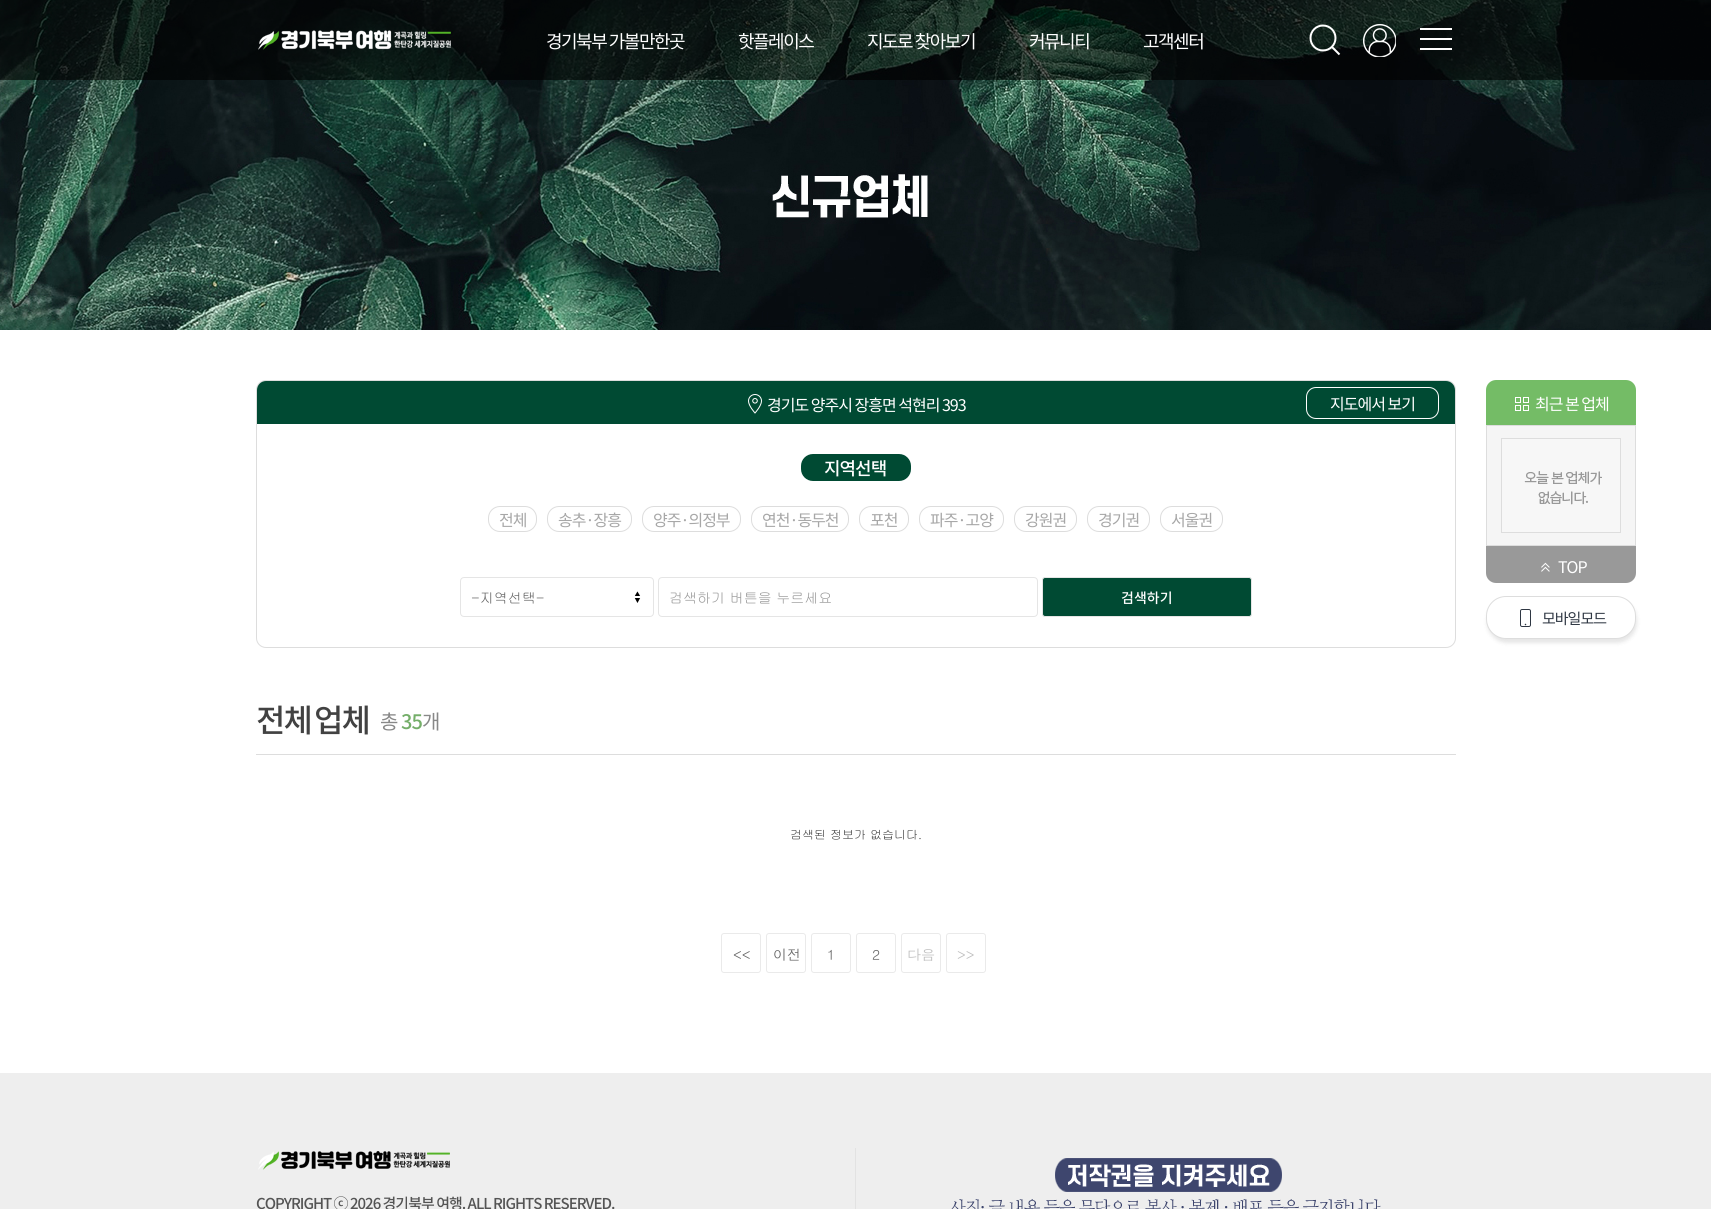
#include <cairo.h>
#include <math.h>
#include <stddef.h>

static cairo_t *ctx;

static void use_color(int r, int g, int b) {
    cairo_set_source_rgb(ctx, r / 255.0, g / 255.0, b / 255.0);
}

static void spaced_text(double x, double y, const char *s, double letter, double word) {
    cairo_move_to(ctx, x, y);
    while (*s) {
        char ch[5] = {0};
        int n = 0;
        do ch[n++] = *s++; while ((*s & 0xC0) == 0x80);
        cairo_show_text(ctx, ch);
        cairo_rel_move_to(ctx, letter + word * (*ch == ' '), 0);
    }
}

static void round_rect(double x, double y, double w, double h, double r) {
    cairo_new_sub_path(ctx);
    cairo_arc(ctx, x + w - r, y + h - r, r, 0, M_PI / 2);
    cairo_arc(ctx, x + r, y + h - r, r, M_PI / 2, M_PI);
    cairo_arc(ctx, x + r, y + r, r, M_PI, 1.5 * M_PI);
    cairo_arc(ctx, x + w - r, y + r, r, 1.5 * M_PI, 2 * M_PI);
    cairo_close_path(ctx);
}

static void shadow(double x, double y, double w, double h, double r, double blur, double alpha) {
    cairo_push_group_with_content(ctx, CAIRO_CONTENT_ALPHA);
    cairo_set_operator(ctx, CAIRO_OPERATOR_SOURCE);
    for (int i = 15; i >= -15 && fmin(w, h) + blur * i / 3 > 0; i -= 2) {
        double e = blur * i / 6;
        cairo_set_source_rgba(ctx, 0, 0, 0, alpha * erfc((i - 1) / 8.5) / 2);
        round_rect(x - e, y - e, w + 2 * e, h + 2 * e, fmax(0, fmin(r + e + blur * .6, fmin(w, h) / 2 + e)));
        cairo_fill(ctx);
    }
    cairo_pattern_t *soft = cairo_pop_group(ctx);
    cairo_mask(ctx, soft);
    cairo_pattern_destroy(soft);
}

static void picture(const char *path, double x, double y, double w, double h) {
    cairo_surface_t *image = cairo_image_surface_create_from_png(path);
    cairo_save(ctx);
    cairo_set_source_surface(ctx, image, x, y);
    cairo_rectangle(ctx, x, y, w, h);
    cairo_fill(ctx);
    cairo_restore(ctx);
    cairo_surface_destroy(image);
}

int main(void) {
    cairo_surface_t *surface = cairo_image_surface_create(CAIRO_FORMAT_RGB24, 1711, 1209);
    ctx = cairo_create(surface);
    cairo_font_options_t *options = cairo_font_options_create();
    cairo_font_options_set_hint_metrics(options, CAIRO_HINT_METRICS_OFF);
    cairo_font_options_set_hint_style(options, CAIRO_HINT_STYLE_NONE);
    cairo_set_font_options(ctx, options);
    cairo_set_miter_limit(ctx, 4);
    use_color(255, 255, 255);
    cairo_paint(ctx);
    picture("img3.png", 0, 0, 1711, 330);
    cairo_set_source_rgba(ctx, 0, 0, 0, 0.6);
    cairo_rectangle(ctx, 0, 0, 1711, 80);
    cairo_fill(ctx);
    picture("img1.png", 258, 30, 193, 20);
    cairo_select_font_face(ctx, "Noto Sans KR Thin", CAIRO_FONT_SLANT_NORMAL, CAIRO_FONT_WEIGHT_NORMAL);
    cairo_set_font_size(ctx, 18);
    use_color(255, 255, 255);
    spaced_text(546, 48, "경기북부 가볼만한곳", -1.5, 0);
    spaced_text(738, 48, "핫플레이스", -1.5, 0);
    spaced_text(867, 48, "지도로 찾아보기", -1.5, 0);
    spaced_text(1029, 48, "커뮤니티", -1.5, 0);
    spaced_text(1143, 48, "고객센터", -1.5, 0);
    cairo_new_path(ctx);
    cairo_arc(ctx, 1323, 38, 12.5, 0, 2 * M_PI);
    cairo_stroke(ctx);
    cairo_new_path(ctx);
    cairo_move_to(ctx, 1332, 47);
    cairo_line_to(ctx, 1339.5, 54.5);
    cairo_close_path(ctx);
    cairo_stroke(ctx);
    picture("img2.png", 1363, 24, 33, 33);
    cairo_rectangle(ctx, 1420, 28, 32, 2);
    cairo_fill(ctx);
    cairo_rectangle(ctx, 1420, 38, 32, 2);
    cairo_fill(ctx);
    cairo_rectangle(ctx, 1420, 48, 32, 2);
    cairo_fill(ctx);
    round_rect(256.5, 380.5, 1199, 267, 9.5);
    use_color(221, 221, 221);
    cairo_set_line_width(ctx, 1);
    cairo_stroke(ctx);
    use_color(0, 74, 51);
    cairo_new_path(ctx);
    cairo_move_to(ctx, 266, 381);
    cairo_line_to(ctx, 1446, 381);
    cairo_curve_to(ctx, 1451, 381, 1455, 385, 1455, 390);
    cairo_line_to(ctx, 1455, 424);
    cairo_line_to(ctx, 257, 424);
    cairo_line_to(ctx, 257, 390);
    cairo_curve_to(ctx, 257, 385, 261, 381, 266, 381);
    cairo_close_path(ctx);
    cairo_fill(ctx);
    picture("img4.png", 748, 394, 14, 20);
    cairo_set_font_size(ctx, 16);
    use_color(255, 255, 255);
    spaced_text(767, 411, "경기도 양주시 장흥면 석현리 393", -1, 0);
    round_rect(1306.5, 387.5, 132, 31, 9.5);
    cairo_stroke(ctx);
    spaced_text(1330, 410, "지도에서 보기", -1, 0);
    use_color(0, 74, 51);
    round_rect(801, 454, 110, 27, 12);
    cairo_fill(ctx);
    cairo_select_font_face(ctx, "Noto Sans KR Medium", CAIRO_FONT_SLANT_NORMAL, CAIRO_FONT_WEIGHT_NORMAL);
    cairo_set_font_size(ctx, 18);
    use_color(255, 255, 255);
    spaced_text(824, 475, "지역선택", -1, 0);
    round_rect(488.5, 506.5, 48, 25, 11.5);
    use_color(221, 221, 221);
    cairo_stroke(ctx);
    cairo_select_font_face(ctx, "Noto Sans KR Thin", CAIRO_FONT_SLANT_NORMAL, CAIRO_FONT_WEIGHT_NORMAL);
    cairo_set_font_size(ctx, 16);
    use_color(167, 167, 167);
    spaced_text(499, 526, "전체", -1, 0);
    round_rect(547.5, 506.5, 84, 25, 11.5);
    use_color(221, 221, 221);
    cairo_stroke(ctx);
    use_color(167, 167, 167);
    spaced_text(558, 526, "송추·장흥", -1, 0);
    round_rect(642.5, 506.5, 98, 25, 11.5);
    use_color(221, 221, 221);
    cairo_stroke(ctx);
    use_color(167, 167, 167);
    spaced_text(653, 526, "양주·의정부", -1, 0);
    round_rect(751.5, 506.5, 97, 25, 11.5);
    use_color(221, 221, 221);
    cairo_stroke(ctx);
    use_color(167, 167, 167);
    spaced_text(762, 526, "연천·동두천", -1, 0);
    round_rect(859.5, 506.5, 49, 25, 11.5);
    use_color(221, 221, 221);
    cairo_stroke(ctx);
    use_color(167, 167, 167);
    spaced_text(870, 526, "포천", -1, 0);
    round_rect(919.5, 506.5, 84, 25, 11.5);
    use_color(221, 221, 221);
    cairo_stroke(ctx);
    use_color(167, 167, 167);
    spaced_text(930, 526, "파주·고양", -1, 0);
    round_rect(1014.5, 506.5, 62, 25, 11.5);
    use_color(221, 221, 221);
    cairo_stroke(ctx);
    use_color(167, 167, 167);
    spaced_text(1025, 526, "강원권", -1, 0);
    round_rect(1087.5, 506.5, 62, 25, 11.5);
    use_color(221, 221, 221);
    cairo_stroke(ctx);
    use_color(167, 167, 167);
    spaced_text(1098, 526, "경기권", -1, 0);
    round_rect(1160.5, 506.5, 62, 25, 11.5);
    use_color(221, 221, 221);
    cairo_stroke(ctx);
    use_color(167, 167, 167);
    spaced_text(1171, 526, "서울권", -1, 0);
    picture("img5.png", 634, 591, 7, 12);
    round_rect(460.5, 577.5, 193, 39, 3.5);
    use_color(229, 229, 229);
    cairo_stroke(ctx);
    cairo_select_font_face(ctx, "Gulim", CAIRO_FONT_SLANT_NORMAL, CAIRO_FONT_WEIGHT_NORMAL);
    cairo_set_font_size(ctx, 14);
    use_color(102, 102, 102);
    cairo_move_to(ctx, 471, 603);
    cairo_show_text(ctx, "-지역선택-");
    round_rect(658.5, 577.5, 379, 39, 3.5);
    use_color(229, 229, 229);
    cairo_stroke(ctx);
    use_color(153, 153, 153);
    cairo_move_to(ctx, 669, 603);
    cairo_show_text(ctx, "검색하기 버튼을 누르세요");
    use_color(0, 74, 51);
    round_rect(1042.5, 577.5, 209, 39, 2.5);
    cairo_fill_preserve(ctx);
    use_color(229, 229, 229);
    cairo_stroke(ctx);
    cairo_select_font_face(ctx, "Noto Sans KR Medium", CAIRO_FONT_SLANT_NORMAL, CAIRO_FONT_WEIGHT_NORMAL);
    use_color(255, 255, 255);
    cairo_move_to(ctx, 1121, 603);
    cairo_show_text(ctx, "검색하기");
    use_color(221, 221, 221);
    cairo_rectangle(ctx, 256, 754, 1200, 1);
    cairo_fill(ctx);
    cairo_set_font_size(ctx, 32);
    use_color(66, 66, 66);
    spaced_text(256, 732, "전체 업체", -2, -2);
    cairo_select_font_face(ctx, "Noto Sans KR Thin", CAIRO_FONT_SLANT_NORMAL, CAIRO_FONT_WEIGHT_NORMAL);
    cairo_set_font_size(ctx, 20);
    use_color(136, 136, 136);
    spaced_text(380, 729, "총", -1, 0);
    cairo_select_font_face(ctx, "Noto Sans KR Medium", CAIRO_FONT_SLANT_NORMAL, CAIRO_FONT_WEIGHT_NORMAL);
    use_color(116, 174, 105);
    spaced_text(401, 729, "35", -1, 0);
    cairo_select_font_face(ctx, "Noto Sans KR Thin", CAIRO_FONT_SLANT_NORMAL, CAIRO_FONT_WEIGHT_NORMAL);
    use_color(136, 136, 136);
    spaced_text(422, 729, "개", -1, 0);
    cairo_select_font_face(ctx, "Gulim", CAIRO_FONT_SLANT_NORMAL, CAIRO_FONT_WEIGHT_NORMAL);
    cairo_set_font_size(ctx, 12);
    use_color(66, 66, 66);
    cairo_move_to(ctx, 790, 839);
    cairo_show_text(ctx, "검색된 정보가 없습니다.");
    round_rect(721.5, 933.5, 39, 39, 2.5);
    use_color(234, 234, 234);
    cairo_stroke(ctx);
    cairo_select_font_face(ctx, "Dotum", CAIRO_FONT_SLANT_NORMAL, CAIRO_FONT_WEIGHT_NORMAL);
    cairo_set_font_size(ctx, 14);
    use_color(102, 102, 102);
    cairo_move_to(ctx, 733, 960);
    cairo_show_text(ctx, "<<");
    round_rect(766.5, 933.5, 39, 39, 2.5);
    use_color(234, 234, 234);
    cairo_stroke(ctx);
    use_color(102, 102, 102);
    cairo_move_to(ctx, 773, 960);
    cairo_show_text(ctx, "이전");
    round_rect(811.5, 933.5, 39, 39, 2.5);
    use_color(234, 234, 234);
    cairo_stroke(ctx);
    use_color(102, 102, 102);
    cairo_move_to(ctx, 827, 960);
    cairo_show_text(ctx, "1");
    round_rect(856.5, 933.5, 39, 39, 2.5);
    use_color(234, 234, 234);
    cairo_stroke(ctx);
    use_color(102, 102, 102);
    cairo_move_to(ctx, 872, 960);
    cairo_show_text(ctx, "2");
    round_rect(901.5, 933.5, 39, 39, 2.5);
    use_color(234, 234, 234);
    cairo_stroke(ctx);
    use_color(190, 190, 190);
    cairo_move_to(ctx, 907, 960);
    cairo_show_text(ctx, "다음");
    round_rect(946.5, 933.5, 39, 39, 2.5);
    use_color(234, 234, 234);
    cairo_stroke(ctx);
    use_color(190, 190, 190);
    cairo_move_to(ctx, 957, 960);
    cairo_show_text(ctx, ">>");
    use_color(116, 188, 102);
    cairo_new_path(ctx);
    cairo_move_to(ctx, 1496, 380);
    cairo_line_to(ctx, 1626, 380);
    cairo_curve_to(ctx, 1631.5, 380, 1636, 384.5, 1636, 390);
    cairo_line_to(ctx, 1636, 425);
    cairo_line_to(ctx, 1486, 425);
    cairo_line_to(ctx, 1486, 390);
    cairo_curve_to(ctx, 1486, 384.5, 1490.5, 380, 1496, 380);
    cairo_close_path(ctx);
    cairo_fill(ctx);
    picture("img6.png", 1515, 397, 14, 14);
    cairo_select_font_face(ctx, "Noto Sans KR Thin", CAIRO_FONT_SLANT_NORMAL, CAIRO_FONT_WEIGHT_NORMAL);
    cairo_set_font_size(ctx, 16);
    use_color(255, 255, 255);
    spaced_text(1535, 410, "최근 본 업체", -1, 0);
    use_color(245, 245, 245);
    cairo_rectangle(ctx, 1486.5, 425.5, 149, 120);
    cairo_fill_preserve(ctx);
    use_color(221, 221, 221);
    cairo_stroke(ctx);
    picture("img7.png", 1501, 438, 120, 95);
    use_color(153, 153, 153);
    cairo_new_path(ctx);
    cairo_move_to(ctx, 1486, 546);
    cairo_line_to(ctx, 1636, 546);
    cairo_line_to(ctx, 1636, 573);
    cairo_curve_to(ctx, 1636, 578.5, 1631.5, 583, 1626, 583);
    cairo_line_to(ctx, 1496, 583);
    cairo_curve_to(ctx, 1490.5, 583, 1486, 578.5, 1486, 573);
    cairo_close_path(ctx);
    cairo_fill(ctx);
    picture("img8.png", 1541, 562, 9, 10);
    use_color(255, 255, 255);
    spaced_text(1558, 573, "TOP", -1, 0);
    use_color(0, 0, 0);
    shadow(1487, 600, 150, 43, 20, 2, 0.1);
    use_color(255, 255, 255);
    round_rect(1486.5, 596.5, 149, 42, 19.5);
    cairo_fill_preserve(ctx);
    use_color(221, 221, 221);
    cairo_stroke(ctx);
    picture("img9.png", 1520, 609, 11, 18);
    cairo_set_font_size(ctx, 15);
    use_color(47, 55, 67);
    spaced_text(1542, 624, "모바일모드", -1, 0);
    use_color(238, 238, 238);
    cairo_rectangle(ctx, 0, 1073, 1711, 136);
    cairo_fill(ctx);
    use_color(226, 226, 226);
    cairo_rectangle(ctx, 855, 1148, 1, 61);
    cairo_fill(ctx);
    picture("img10.png", 258, 1151, 192, 19);
    cairo_select_font_face(ctx, "Noto Sans KR Medium", CAIRO_FONT_SLANT_NORMAL, CAIRO_FONT_WEIGHT_NORMAL);
    use_color(84, 84, 84);
    spaced_text(256, 1209, "COPYRIGHT ⓒ 2026 경기북부 여행. ALL RIGHTS RESERVED.", -1, 0);
    picture("img11.png", 951, 1158, 430, 51);
    cairo_surface_write_to_png(surface, "result.png");
    cairo_font_options_destroy(options);
    cairo_destroy(ctx);
    cairo_surface_destroy(surface);
    return 0;
}
